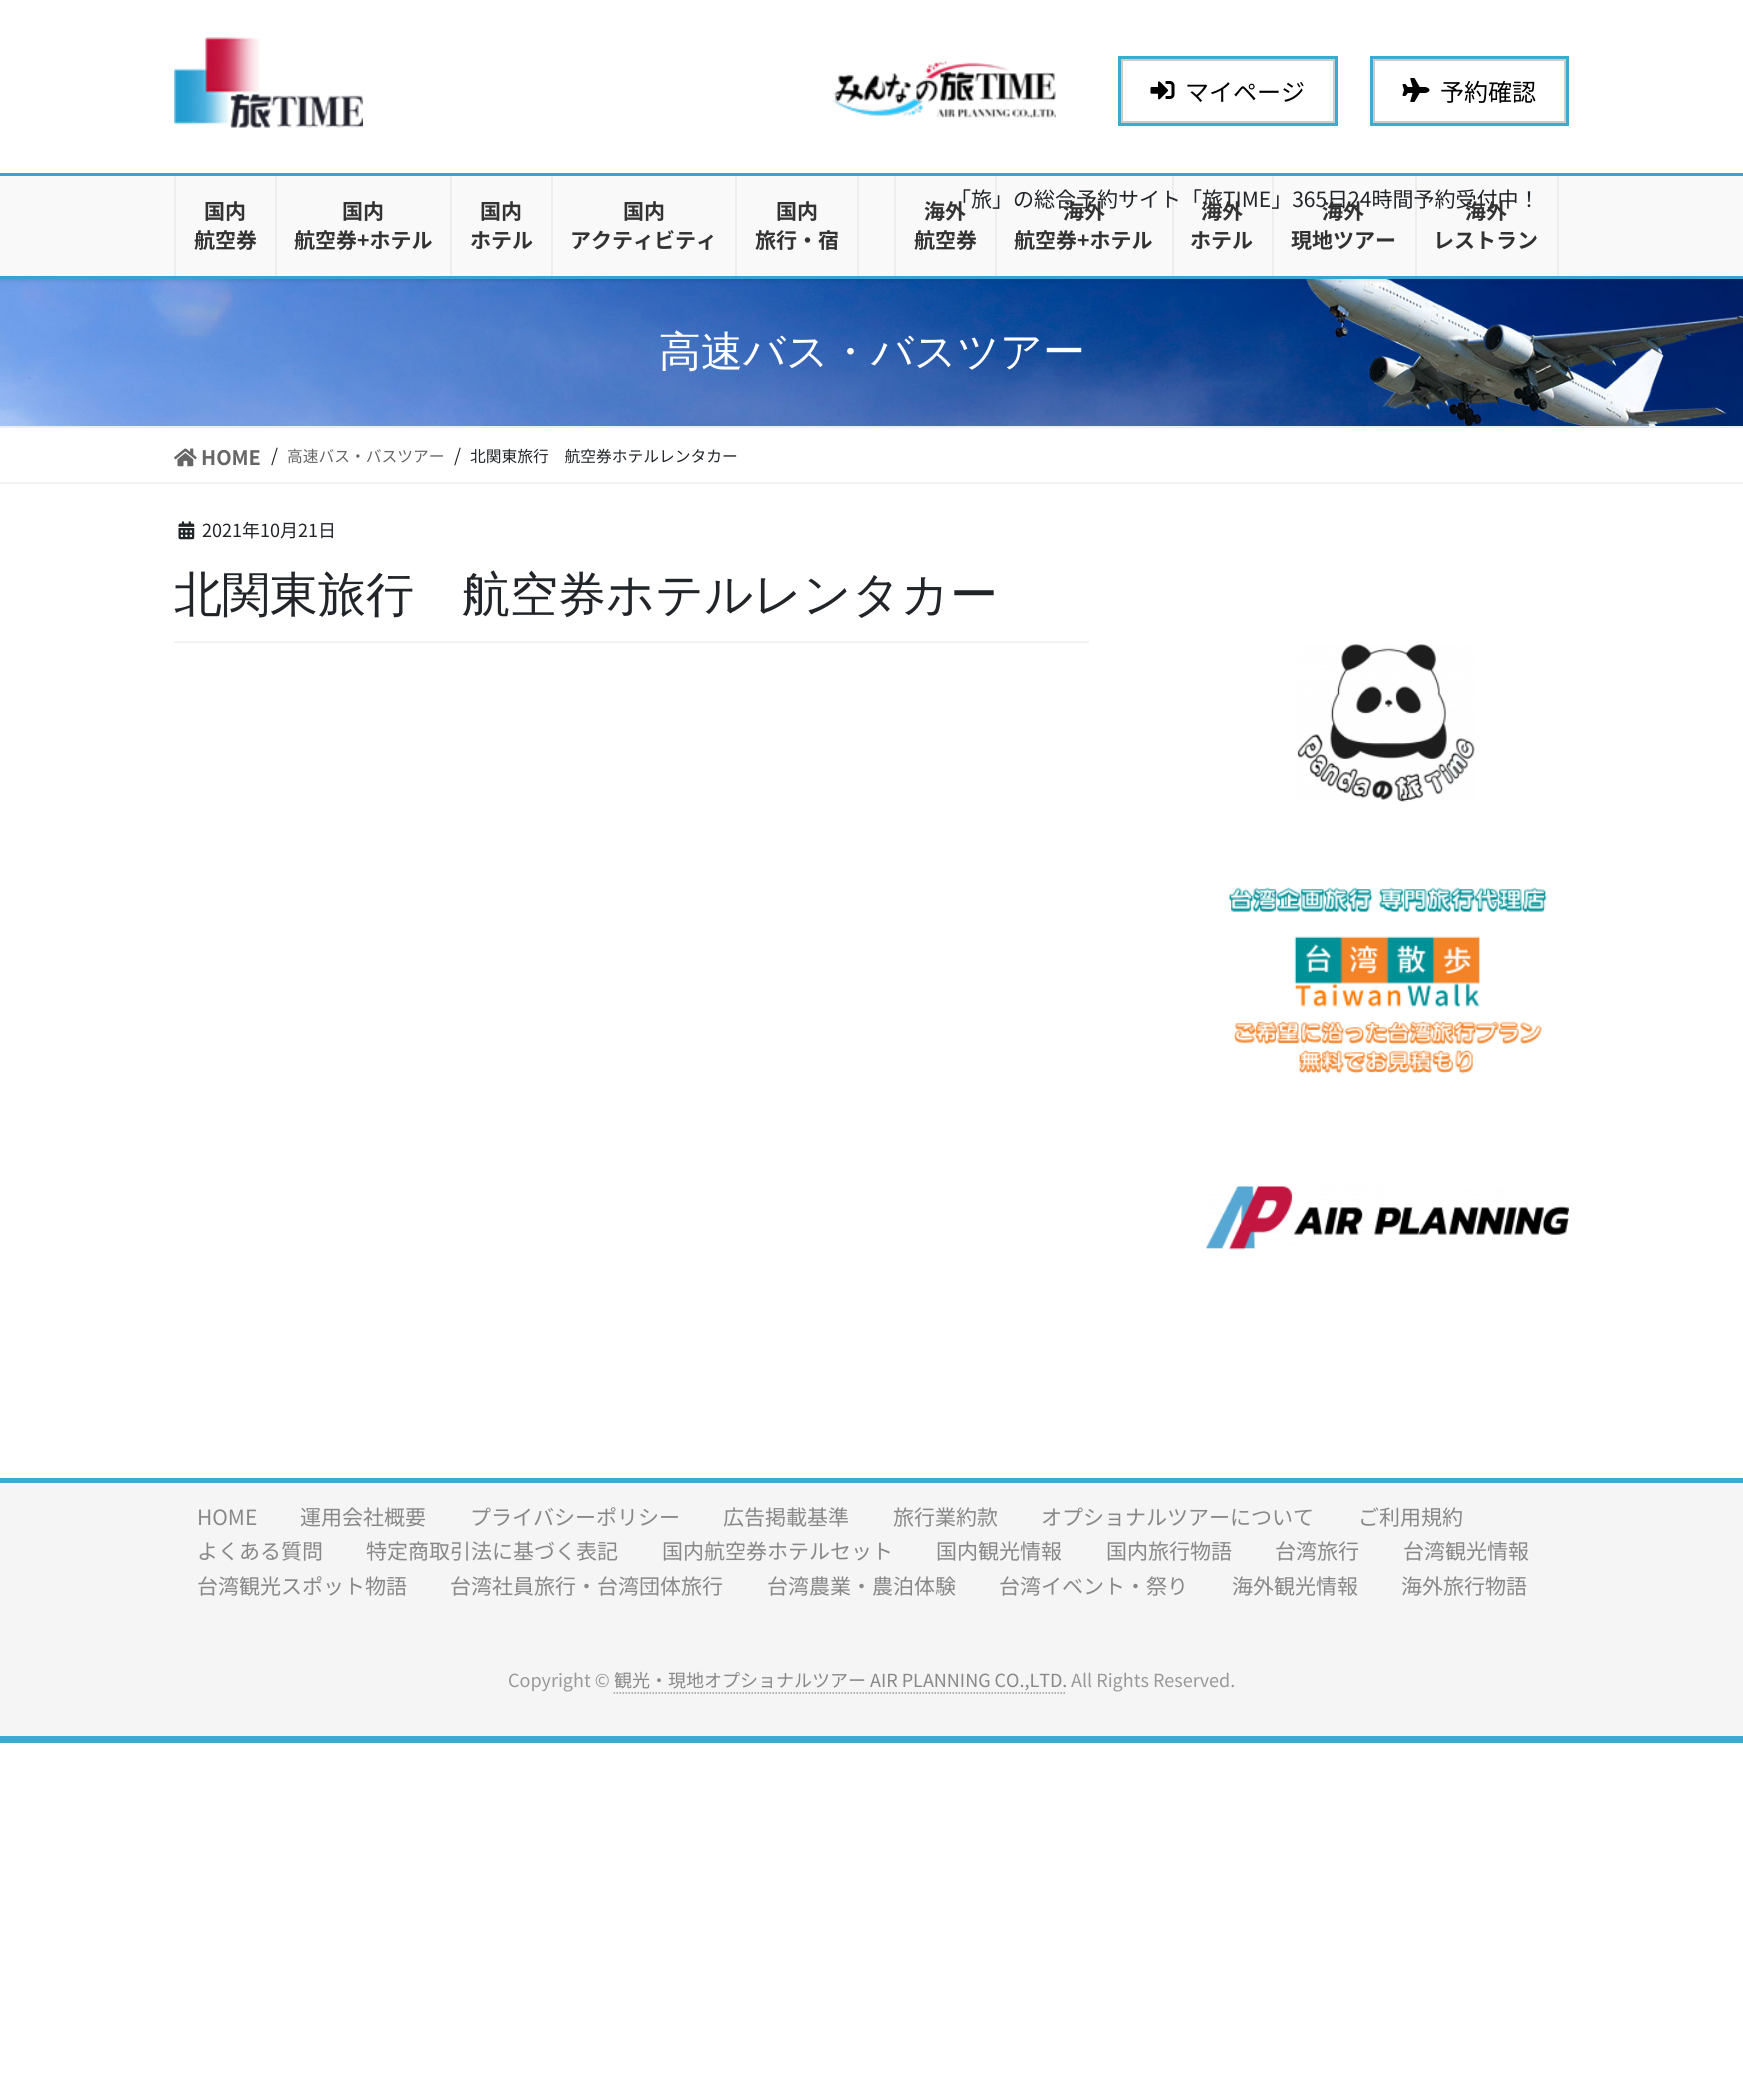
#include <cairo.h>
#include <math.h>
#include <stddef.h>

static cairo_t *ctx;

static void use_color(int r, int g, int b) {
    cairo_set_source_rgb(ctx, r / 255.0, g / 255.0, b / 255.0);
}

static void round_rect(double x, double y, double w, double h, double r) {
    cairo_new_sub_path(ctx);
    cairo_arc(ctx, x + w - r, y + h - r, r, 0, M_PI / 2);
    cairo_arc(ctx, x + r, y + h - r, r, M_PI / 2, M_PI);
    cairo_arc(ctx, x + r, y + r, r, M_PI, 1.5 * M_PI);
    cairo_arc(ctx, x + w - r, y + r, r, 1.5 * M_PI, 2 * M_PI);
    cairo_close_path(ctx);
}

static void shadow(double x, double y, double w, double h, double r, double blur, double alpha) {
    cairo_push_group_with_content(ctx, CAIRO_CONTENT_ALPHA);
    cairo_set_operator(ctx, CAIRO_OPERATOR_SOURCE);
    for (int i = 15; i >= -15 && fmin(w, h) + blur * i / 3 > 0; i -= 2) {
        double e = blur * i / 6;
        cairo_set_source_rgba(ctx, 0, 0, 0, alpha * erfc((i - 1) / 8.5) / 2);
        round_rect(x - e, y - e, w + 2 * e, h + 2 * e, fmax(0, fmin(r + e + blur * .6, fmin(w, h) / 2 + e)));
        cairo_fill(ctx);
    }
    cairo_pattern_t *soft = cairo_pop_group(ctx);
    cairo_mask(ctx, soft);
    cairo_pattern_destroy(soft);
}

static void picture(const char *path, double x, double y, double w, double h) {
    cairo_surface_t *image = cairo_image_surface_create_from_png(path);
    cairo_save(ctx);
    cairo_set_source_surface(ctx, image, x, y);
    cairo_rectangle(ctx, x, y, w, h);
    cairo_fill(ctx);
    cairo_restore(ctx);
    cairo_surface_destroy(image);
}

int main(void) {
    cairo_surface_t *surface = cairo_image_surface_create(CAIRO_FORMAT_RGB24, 1743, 2080);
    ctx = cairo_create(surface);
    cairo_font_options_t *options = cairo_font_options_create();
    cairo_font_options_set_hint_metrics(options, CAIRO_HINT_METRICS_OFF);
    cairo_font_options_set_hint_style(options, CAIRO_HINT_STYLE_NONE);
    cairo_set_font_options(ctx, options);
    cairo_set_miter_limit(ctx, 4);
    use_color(255, 255, 255);
    cairo_paint(ctx);
    picture("img5.png", 0, 279, 1743, 147);
    cairo_save(ctx);
    cairo_rectangle(ctx, 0, 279, 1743, 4);
    cairo_clip(ctx);
    use_color(0, 0, 0);
    shadow(0, 2, 1743, 279, 0, 2, 0.1);
    cairo_restore(ctx);
    picture("img1.png", 174, 37, 189, 91);
    picture("img2.png", 832, 61, 224, 58);
    cairo_rectangle(ctx, 1122, 60, 212, 62);
    use_color(204, 204, 204);
    cairo_stroke(ctx);
    cairo_rectangle(ctx, 1119.5, 57.5, 217, 67);
    use_color(60, 170, 209);
    cairo_set_line_width(ctx, 3);
    cairo_stroke(ctx);
    picture("img3.png", 1150, 81, 25, 19);
    cairo_select_font_face(ctx, "Noto Sans JP", CAIRO_FONT_SLANT_NORMAL, CAIRO_FONT_WEIGHT_NORMAL);
    cairo_set_font_size(ctx, 24);
    use_color(0, 0, 0);
    cairo_move_to(ctx, 1185, 101);
    cairo_show_text(ctx, "マイページ");
    cairo_rectangle(ctx, 1374, 60, 191, 62);
    use_color(204, 204, 204);
    cairo_set_line_width(ctx, 2);
    cairo_stroke(ctx);
    cairo_rectangle(ctx, 1371.5, 57.5, 196, 67);
    use_color(60, 170, 209);
    cairo_set_line_width(ctx, 3);
    cairo_stroke(ctx);
    picture("img4.png", 1402, 78, 28, 24);
    use_color(0, 0, 0);
    cairo_move_to(ctx, 1440, 101);
    cairo_show_text(ctx, "予約確認");
    use_color(249, 249, 249);
    cairo_rectangle(ctx, 0, 176, 1743, 100);
    cairo_fill(ctx);
    cairo_set_font_size(ctx, 21);
    use_color(33, 37, 41);
    cairo_move_to(ctx, 950, 207);
    cairo_show_text(ctx, "「旅」の総合予約サイト「旅TIME」365日24時間予約受付中！");
    use_color(50, 166, 209);
    cairo_rectangle(ctx, 0, 173, 1743, 3);
    cairo_fill(ctx);
    cairo_rectangle(ctx, 0, 276, 1743, 3);
    cairo_fill(ctx);
    use_color(237, 237, 237);
    cairo_rectangle(ctx, 174, 176, 2, 100);
    cairo_fill(ctx);
    cairo_select_font_face(ctx, "Noto Sans JP", CAIRO_FONT_SLANT_NORMAL, CAIRO_FONT_WEIGHT_BOLD);
    use_color(51, 51, 51);
    cairo_move_to(ctx, 204, 219);
    cairo_show_text(ctx, "国内");
    cairo_move_to(ctx, 194, 248);
    cairo_show_text(ctx, "航空券");
    use_color(237, 237, 237);
    cairo_rectangle(ctx, 275, 176, 2, 100);
    cairo_fill(ctx);
    use_color(51, 51, 51);
    cairo_move_to(ctx, 342, 219);
    cairo_show_text(ctx, "国内");
    cairo_move_to(ctx, 294, 248);
    cairo_show_text(ctx, "航空券+ホテル");
    use_color(237, 237, 237);
    cairo_rectangle(ctx, 450, 176, 2, 100);
    cairo_fill(ctx);
    use_color(51, 51, 51);
    cairo_move_to(ctx, 480, 219);
    cairo_show_text(ctx, "国内");
    cairo_move_to(ctx, 470, 248);
    cairo_show_text(ctx, "ホテル");
    use_color(237, 237, 237);
    cairo_rectangle(ctx, 551, 176, 2, 100);
    cairo_fill(ctx);
    use_color(51, 51, 51);
    cairo_move_to(ctx, 623, 219);
    cairo_show_text(ctx, "国内");
    cairo_move_to(ctx, 570, 248);
    cairo_show_text(ctx, "アクティビティ");
    use_color(237, 237, 237);
    cairo_rectangle(ctx, 735, 176, 2, 100);
    cairo_fill(ctx);
    use_color(51, 51, 51);
    cairo_move_to(ctx, 776, 219);
    cairo_show_text(ctx, "国内");
    cairo_move_to(ctx, 755, 248);
    cairo_show_text(ctx, "旅行・宿");
    use_color(237, 237, 237);
    cairo_rectangle(ctx, 857, 176, 2, 100);
    cairo_fill(ctx);
    cairo_rectangle(ctx, 894, 176, 2, 100);
    cairo_fill(ctx);
    use_color(51, 51, 51);
    cairo_move_to(ctx, 924, 219);
    cairo_show_text(ctx, "海外");
    cairo_move_to(ctx, 914, 248);
    cairo_show_text(ctx, "航空券");
    cairo_set_source_rgba(ctx, 0, 0, 0, 0.05);
    cairo_rectangle(ctx, 995, 176, 2, 100);
    cairo_fill(ctx);
    use_color(51, 51, 51);
    cairo_move_to(ctx, 1063, 219);
    cairo_show_text(ctx, "海外");
    cairo_move_to(ctx, 1014, 248);
    cairo_show_text(ctx, "航空券+ホテル");
    cairo_set_source_rgba(ctx, 0, 0, 0, 0.05);
    cairo_rectangle(ctx, 1172, 176, 2, 100);
    cairo_fill(ctx);
    use_color(51, 51, 51);
    cairo_move_to(ctx, 1201, 219);
    cairo_show_text(ctx, "海外");
    cairo_move_to(ctx, 1190, 248);
    cairo_show_text(ctx, "ホテル");
    cairo_set_source_rgba(ctx, 0, 0, 0, 0.05);
    cairo_rectangle(ctx, 1272, 176, 2, 100);
    cairo_fill(ctx);
    use_color(51, 51, 51);
    cairo_move_to(ctx, 1322, 219);
    cairo_show_text(ctx, "海外");
    cairo_move_to(ctx, 1291, 248);
    cairo_show_text(ctx, "現地ツアー");
    use_color(237, 237, 237);
    cairo_rectangle(ctx, 1557, 176, 2, 100);
    cairo_fill(ctx);
    cairo_set_source_rgba(ctx, 0, 0, 0, 0.05);
    cairo_rectangle(ctx, 1415, 176, 2, 100);
    cairo_fill(ctx);
    use_color(51, 51, 51);
    cairo_move_to(ctx, 1465, 219);
    cairo_show_text(ctx, "海外");
    cairo_move_to(ctx, 1433, 248);
    cairo_show_text(ctx, "レストラン");
    use_color(238, 238, 238);
    cairo_rectangle(ctx, 0, 426, 1743, 2);
    cairo_fill(ctx);
    cairo_select_font_face(ctx, "WenQuanYi Zen Hei Medium", CAIRO_FONT_SLANT_NORMAL, CAIRO_FONT_WEIGHT_NORMAL);
    cairo_set_font_size(ctx, 42);
    use_color(255, 255, 255);
    cairo_move_to(ctx, 659, 366);
    cairo_show_text(ctx, "高速バス・バスツアー");
    use_color(243, 243, 243);
    cairo_rectangle(ctx, 0, 482, 1743, 2);
    cairo_fill(ctx);
    picture("img6.png", 174, 448, 23, 19);
    cairo_select_font_face(ctx, "Noto Sans JP", CAIRO_FONT_SLANT_NORMAL, CAIRO_FONT_WEIGHT_BOLD);
    cairo_set_font_size(ctx, 20);
    use_color(102, 102, 102);
    cairo_move_to(ctx, 201, 465);
    cairo_show_text(ctx, "HOME");
    cairo_select_font_face(ctx, "Noto Sans JP", CAIRO_FONT_SLANT_NORMAL, CAIRO_FONT_WEIGHT_NORMAL);
    cairo_set_font_size(ctx, 18);
    use_color(33, 37, 41);
    cairo_move_to(ctx, 271, 462);
    cairo_show_text(ctx, "/");
    cairo_set_font_size(ctx, 15.75);
    use_color(102, 102, 102);
    cairo_move_to(ctx, 287, 462);
    cairo_show_text(ctx, "高速バス・バスツアー");
    cairo_set_font_size(ctx, 18);
    use_color(33, 37, 41);
    cairo_move_to(ctx, 454, 462);
    cairo_show_text(ctx, "/");
    cairo_set_font_size(ctx, 15.75);
    cairo_move_to(ctx, 470, 462);
    cairo_show_text(ctx, "北関東旅行　航空券ホテルレンタカー");
    use_color(242, 242, 242);
    cairo_rectangle(ctx, 174, 641, 915, 2);
    cairo_fill(ctx);
    picture("img7.png", 178, 521, 17, 19);
    cairo_set_font_size(ctx, 18);
    use_color(33, 37, 41);
    cairo_move_to(ctx, 202, 537);
    cairo_show_text(ctx, "2021年10月21日");
    cairo_select_font_face(ctx, "WenQuanYi Zen Hei Medium", CAIRO_FONT_SLANT_NORMAL, CAIRO_FONT_WEIGHT_NORMAL);
    cairo_set_font_size(ctx, 48);
    cairo_move_to(ctx, 174, 611);
    cairo_show_text(ctx, "北関東旅行　航空券ホテルレンタカー");
    picture("img8.png", 1297, 644, 178, 158);
    picture("img9.png", 1228, 887, 319, 187);
    picture("img10.png", 1206, 1186, 363, 64);
    use_color(245, 245, 245);
    cairo_rectangle(ctx, 0, 1483, 1743, 253);
    cairo_fill(ctx);
    use_color(60, 170, 209);
    cairo_rectangle(ctx, 0, 1478, 1743, 5);
    cairo_fill(ctx);
    cairo_rectangle(ctx, 0, 1736, 1743, 7);
    cairo_fill(ctx);
    cairo_select_font_face(ctx, "Noto Sans JP", CAIRO_FONT_SLANT_NORMAL, CAIRO_FONT_WEIGHT_NORMAL);
    cairo_set_font_size(ctx, 21);
    use_color(136, 136, 136);
    cairo_move_to(ctx, 197, 1525);
    cairo_show_text(ctx, "HOME");
    cairo_move_to(ctx, 300, 1525);
    cairo_show_text(ctx, "運用会社概要");
    cairo_move_to(ctx, 470, 1525);
    cairo_show_text(ctx, "プライバシーポリシー");
    cairo_move_to(ctx, 723, 1525);
    cairo_show_text(ctx, "広告掲載基準");
    cairo_move_to(ctx, 893, 1525);
    cairo_show_text(ctx, "旅行業約款");
    cairo_move_to(ctx, 1041, 1525);
    cairo_show_text(ctx, "オプショナルツアーについて");
    cairo_move_to(ctx, 1358, 1525);
    cairo_show_text(ctx, "ご利用規約");
    cairo_move_to(ctx, 197, 1559);
    cairo_show_text(ctx, "よくある質問");
    cairo_move_to(ctx, 366, 1559);
    cairo_show_text(ctx, "特定商取引法に基づく表記");
    cairo_move_to(ctx, 662, 1559);
    cairo_show_text(ctx, "国内航空券ホテルセット");
    cairo_move_to(ctx, 936, 1559);
    cairo_show_text(ctx, "国内観光情報");
    cairo_move_to(ctx, 1106, 1559);
    cairo_show_text(ctx, "国内旅行物語");
    cairo_move_to(ctx, 1275, 1559);
    cairo_show_text(ctx, "台湾旅行");
    cairo_move_to(ctx, 1403, 1559);
    cairo_show_text(ctx, "台湾観光情報");
    cairo_move_to(ctx, 197, 1594);
    cairo_show_text(ctx, "台湾観光スポット物語");
    cairo_move_to(ctx, 450, 1594);
    cairo_show_text(ctx, "台湾社員旅行・台湾団体旅行");
    cairo_move_to(ctx, 767, 1594);
    cairo_show_text(ctx, "台湾農業・農泊体験");
    cairo_move_to(ctx, 999, 1594);
    cairo_show_text(ctx, "台湾イベント・祭り");
    cairo_move_to(ctx, 1232, 1594);
    cairo_show_text(ctx, "海外観光情報");
    cairo_move_to(ctx, 1401, 1594);
    cairo_show_text(ctx, "海外旅行物語");
    cairo_set_font_size(ctx, 18);
    use_color(153, 153, 153);
    cairo_move_to(ctx, 508, 1687);
    cairo_show_text(ctx, "Copyright ©");
    use_color(136, 136, 136);
    cairo_move_to(ctx, 614, 1687);
    cairo_show_text(ctx, "観光・現地オプショナルツアー AIR PLANNING CO.,LTD.");
    cairo_new_path(ctx);
    cairo_move_to(ctx, 613.5, 1693);
    cairo_line_to(ctx, 1066.5, 1693);
    use_color(153, 153, 153);
    cairo_set_line_width(ctx, 1.5);
    cairo_set_dash(ctx, (double[]){1.5, 1.5}, 2, 0);
    cairo_stroke(ctx);
    cairo_move_to(ctx, 1071, 1687);
    cairo_show_text(ctx, "All Rights Reserved.");
    cairo_surface_write_to_png(surface, "result.png");
    cairo_font_options_destroy(options);
    cairo_destroy(ctx);
    cairo_surface_destroy(surface);
    return 0;
}
